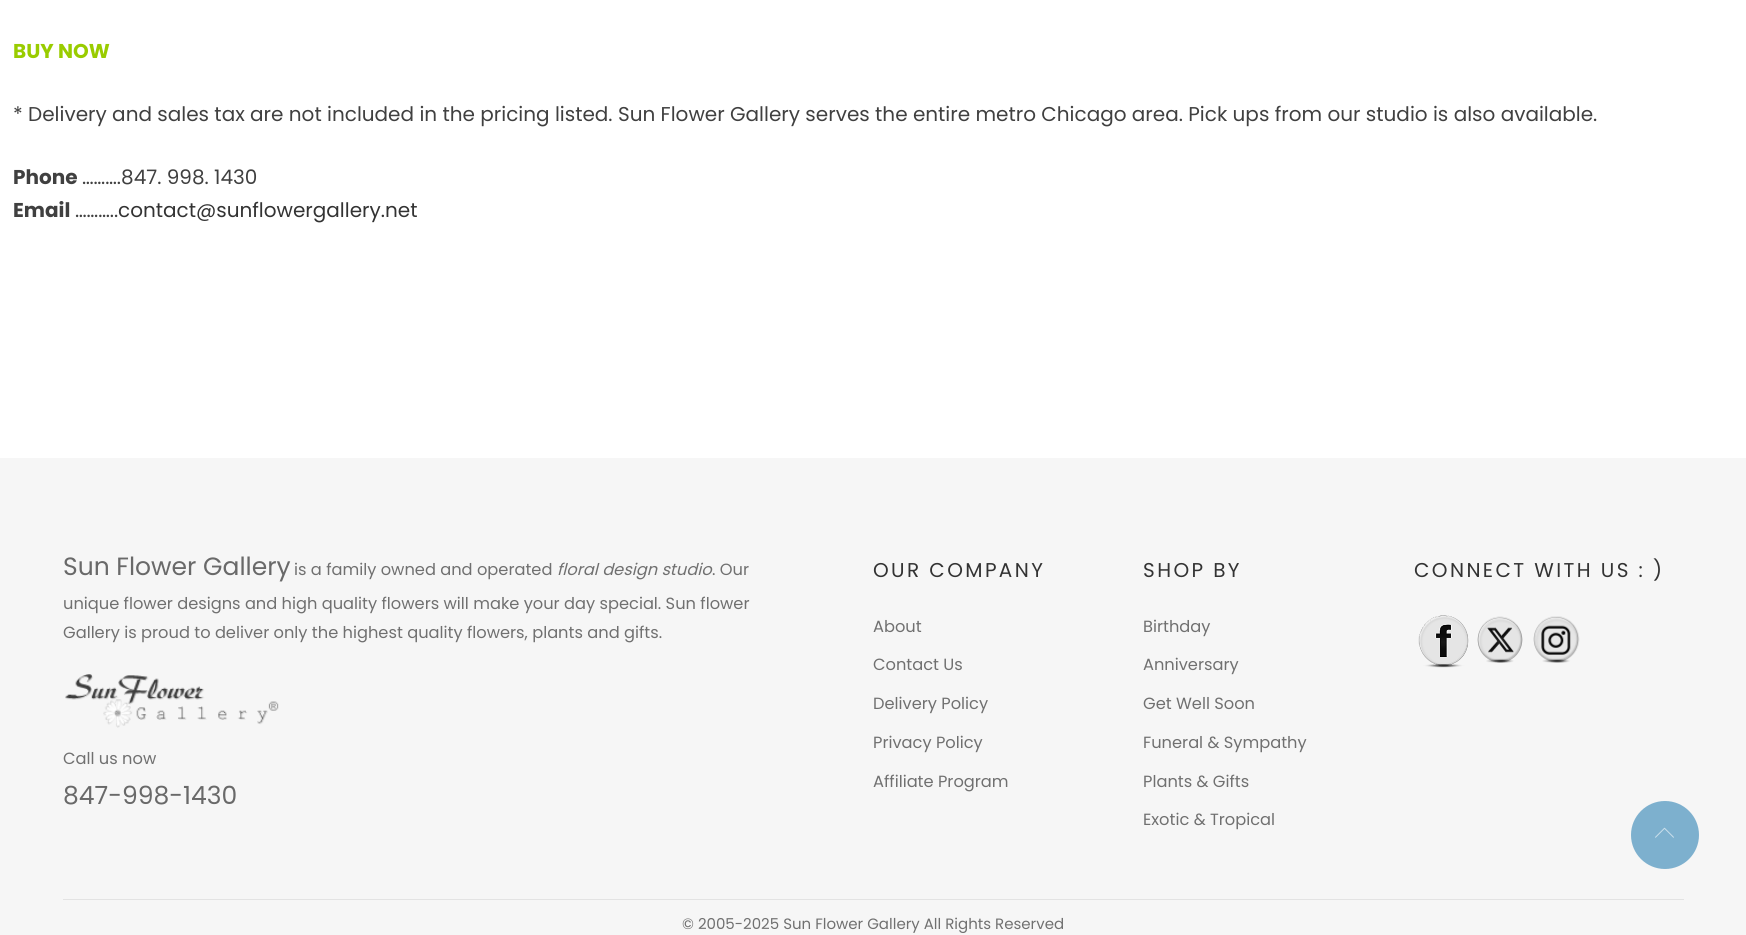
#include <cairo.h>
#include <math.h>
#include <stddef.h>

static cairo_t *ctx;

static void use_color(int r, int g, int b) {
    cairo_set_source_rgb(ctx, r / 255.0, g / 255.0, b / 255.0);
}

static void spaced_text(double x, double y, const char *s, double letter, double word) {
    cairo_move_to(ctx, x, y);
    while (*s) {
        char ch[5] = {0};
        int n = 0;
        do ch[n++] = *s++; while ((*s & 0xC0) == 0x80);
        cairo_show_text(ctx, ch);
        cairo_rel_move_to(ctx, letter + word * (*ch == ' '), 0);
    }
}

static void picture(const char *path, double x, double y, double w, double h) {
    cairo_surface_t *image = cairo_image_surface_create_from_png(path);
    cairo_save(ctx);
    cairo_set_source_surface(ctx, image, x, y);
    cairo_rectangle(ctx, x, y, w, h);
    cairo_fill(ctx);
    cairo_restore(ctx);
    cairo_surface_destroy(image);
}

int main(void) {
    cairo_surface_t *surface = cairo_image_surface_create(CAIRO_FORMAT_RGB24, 1746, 935);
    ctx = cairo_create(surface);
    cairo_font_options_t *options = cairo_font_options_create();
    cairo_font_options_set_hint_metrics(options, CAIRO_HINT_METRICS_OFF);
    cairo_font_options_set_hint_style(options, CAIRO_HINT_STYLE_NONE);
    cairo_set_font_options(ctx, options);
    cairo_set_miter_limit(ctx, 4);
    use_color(255, 255, 255);
    cairo_paint(ctx);
    cairo_select_font_face(ctx, "Poppins", CAIRO_FONT_SLANT_NORMAL, CAIRO_FONT_WEIGHT_BOLD);
    cairo_set_font_size(ctx, 20);
    use_color(153, 204, 0);
    cairo_move_to(ctx, 13, 58);
    cairo_show_text(ctx, "BUY NOW");
    cairo_select_font_face(ctx, "Poppins", CAIRO_FONT_SLANT_NORMAL, CAIRO_FONT_WEIGHT_NORMAL);
    use_color(64, 64, 64);
    cairo_move_to(ctx, 13, 121);
    cairo_show_text(ctx, "* Delivery and sales tax are not included in the pricing listed. Sun Flower Gallery serves the entire metro Chicago area. Pick ups from our studio is also available.");
    cairo_select_font_face(ctx, "Poppins", CAIRO_FONT_SLANT_NORMAL, CAIRO_FONT_WEIGHT_BOLD);
    cairo_move_to(ctx, 13, 184);
    cairo_show_text(ctx, "Phone");
    cairo_select_font_face(ctx, "Poppins", CAIRO_FONT_SLANT_NORMAL, CAIRO_FONT_WEIGHT_NORMAL);
    cairo_move_to(ctx, 82, 184);
    cairo_show_text(ctx, "……….847. 998. 1430");
    cairo_select_font_face(ctx, "Poppins", CAIRO_FONT_SLANT_NORMAL, CAIRO_FONT_WEIGHT_BOLD);
    cairo_move_to(ctx, 13, 217);
    cairo_show_text(ctx, "Email");
    cairo_select_font_face(ctx, "Poppins", CAIRO_FONT_SLANT_NORMAL, CAIRO_FONT_WEIGHT_NORMAL);
    cairo_move_to(ctx, 75, 217);
    cairo_show_text(ctx, "………..");
    use_color(51, 51, 51);
    cairo_move_to(ctx, 118, 217);
    cairo_show_text(ctx, "contact@sunflowergallery.net");
    use_color(246, 246, 246);
    cairo_rectangle(ctx, 0, 458, 1746, 477);
    cairo_fill(ctx);
    use_color(227, 227, 227);
    cairo_rectangle(ctx, 63, 899, 1621, 1);
    cairo_fill(ctx);
    cairo_set_font_size(ctx, 25);
    use_color(105, 105, 105);
    cairo_move_to(ctx, 63, 575);
    cairo_show_text(ctx, "Sun Flower Gallery");
    cairo_set_font_size(ctx, 16.25);
    use_color(112, 112, 112);
    cairo_move_to(ctx, 294, 575);
    cairo_show_text(ctx, "is a family owned and operated");
    cairo_select_font_face(ctx, "Poppins", CAIRO_FONT_SLANT_ITALIC, CAIRO_FONT_WEIGHT_NORMAL);
    cairo_move_to(ctx, 557, 575);
    cairo_show_text(ctx, "floral design studio");
    cairo_select_font_face(ctx, "Poppins", CAIRO_FONT_SLANT_NORMAL, CAIRO_FONT_WEIGHT_NORMAL);
    cairo_move_to(ctx, 712, 575);
    cairo_show_text(ctx, ". Our");
    cairo_move_to(ctx, 63, 609);
    cairo_show_text(ctx, "unique flower designs and high quality flowers will make your day special. Sun flower");
    cairo_move_to(ctx, 63, 638);
    cairo_show_text(ctx, "Gallery is proud to deliver only the highest quality flowers, plants and gifts.");
    picture("img1.png", 65, 674, 214, 54);
    cairo_move_to(ctx, 63, 764);
    cairo_show_text(ctx, "Call us now");
    cairo_set_font_size(ctx, 25);
    use_color(105, 105, 105);
    cairo_move_to(ctx, 63, 804);
    cairo_show_text(ctx, "847-998-1430");
    cairo_set_font_size(ctx, 20);
    use_color(51, 51, 51);
    spaced_text(873, 577, "OUR COMPANY", 2.4, 0);
    cairo_set_font_size(ctx, 16.25);
    use_color(112, 112, 112);
    cairo_move_to(ctx, 873, 632);
    cairo_show_text(ctx, "About");
    cairo_move_to(ctx, 873, 670);
    cairo_show_text(ctx, "Contact Us");
    cairo_move_to(ctx, 873, 709);
    cairo_show_text(ctx, "Delivery Policy");
    cairo_move_to(ctx, 873, 748);
    cairo_show_text(ctx, "Privacy Policy");
    cairo_move_to(ctx, 873, 787);
    cairo_show_text(ctx, "Affiliate Program");
    cairo_set_font_size(ctx, 20);
    use_color(51, 51, 51);
    spaced_text(1143, 577, "SHOP BY", 2.4, 0);
    cairo_set_font_size(ctx, 16.25);
    use_color(112, 112, 112);
    cairo_move_to(ctx, 1143, 632);
    cairo_show_text(ctx, "Birthday");
    cairo_move_to(ctx, 1143, 670);
    cairo_show_text(ctx, "Anniversary");
    cairo_move_to(ctx, 1143, 709);
    cairo_show_text(ctx, "Get Well Soon");
    cairo_move_to(ctx, 1143, 748);
    cairo_show_text(ctx, "Funeral & Sympathy");
    cairo_move_to(ctx, 1143, 787);
    cairo_show_text(ctx, "Plants & Gifts");
    cairo_move_to(ctx, 1143, 825);
    cairo_show_text(ctx, "Exotic & Tropical");
    cairo_set_font_size(ctx, 20);
    use_color(51, 51, 51);
    spaced_text(1414, 577, "CONNECT WITH US : )", 2.4, 0);
    picture("img2.png", 1418, 615, 51, 53);
    picture("img3.png", 1477, 616, 46, 47);
    picture("img4.png", 1533, 616, 47, 47);
    cairo_set_font_size(ctx, 15);
    use_color(112, 112, 112);
    cairo_move_to(ctx, 682, 929);
    cairo_show_text(ctx, "© 2005-2025 Sun Flower Gallery All Rights Reserved");
    use_color(125, 176, 206);
    cairo_new_path(ctx);
    cairo_arc(ctx, 1665, 835, 34, 0, 2 * M_PI);
    cairo_fill(ctx);
    picture("img5.png", 1655, 827, 19, 11);
    cairo_surface_write_to_png(surface, "result.png");
    cairo_font_options_destroy(options);
    cairo_destroy(ctx);
    cairo_surface_destroy(surface);
    return 0;
}
